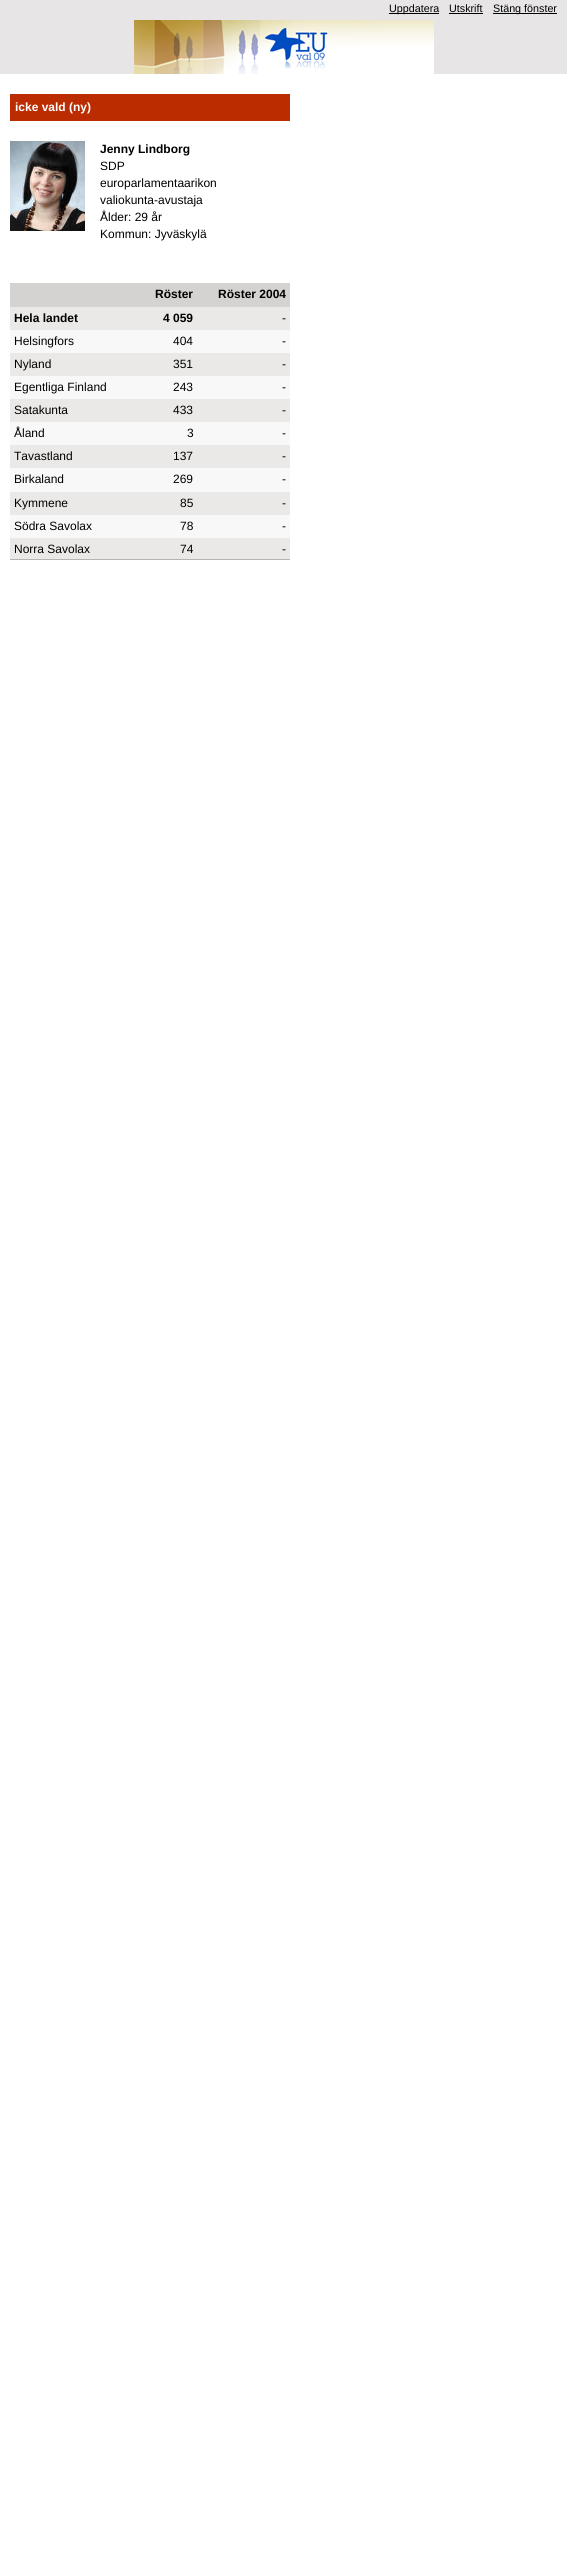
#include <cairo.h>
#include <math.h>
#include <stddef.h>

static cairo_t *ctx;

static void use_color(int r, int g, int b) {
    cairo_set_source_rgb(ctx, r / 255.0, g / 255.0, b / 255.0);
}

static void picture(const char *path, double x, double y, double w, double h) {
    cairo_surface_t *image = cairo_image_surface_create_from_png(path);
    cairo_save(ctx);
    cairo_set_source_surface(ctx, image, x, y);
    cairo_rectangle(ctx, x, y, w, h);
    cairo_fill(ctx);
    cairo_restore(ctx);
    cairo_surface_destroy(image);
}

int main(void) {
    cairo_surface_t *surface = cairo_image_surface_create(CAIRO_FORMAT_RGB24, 567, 2557);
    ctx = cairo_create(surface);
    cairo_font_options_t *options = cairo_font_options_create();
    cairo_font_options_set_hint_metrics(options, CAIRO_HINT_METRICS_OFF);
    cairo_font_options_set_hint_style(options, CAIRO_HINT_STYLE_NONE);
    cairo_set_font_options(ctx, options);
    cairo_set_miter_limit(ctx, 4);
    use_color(255, 255, 255);
    cairo_paint(ctx);
    use_color(231, 229, 230);
    cairo_rectangle(ctx, 0, 0, 567, 74);
    cairo_fill(ctx);
    picture("img1.png", 134, 20, 300, 54);
    use_color(0, 0, 0);
    cairo_rectangle(ctx, 389, 13, 50, 1);
    cairo_fill(ctx);
    cairo_select_font_face(ctx, "Liberation Sans", CAIRO_FONT_SLANT_NORMAL, CAIRO_FONT_WEIGHT_NORMAL);
    cairo_set_font_size(ctx, 10.75);
    cairo_move_to(ctx, 389, 12);
    cairo_show_text(ctx, "Uppdatera");
    cairo_move_to(ctx, 449, 12);
    cairo_show_text(ctx, "Utskrift");
    cairo_rectangle(ctx, 449, 13, 34, 1);
    cairo_fill(ctx);
    cairo_rectangle(ctx, 493, 13, 64, 1);
    cairo_fill(ctx);
    cairo_move_to(ctx, 493, 12);
    cairo_show_text(ctx, "Stäng fönster");
    use_color(187, 44, 0);
    cairo_rectangle(ctx, 10, 94, 280, 27);
    cairo_fill(ctx);
    cairo_select_font_face(ctx, "Liberation Sans", CAIRO_FONT_SLANT_NORMAL, CAIRO_FONT_WEIGHT_BOLD);
    cairo_set_font_size(ctx, 12);
    use_color(255, 255, 255);
    cairo_move_to(ctx, 15, 111);
    cairo_show_text(ctx, "icke vald (ny)");
    picture("img2.png", 10, 141, 75, 90);
    use_color(0, 0, 0);
    cairo_move_to(ctx, 100, 153);
    cairo_show_text(ctx, "Jenny Lindborg");
    cairo_select_font_face(ctx, "Liberation Sans", CAIRO_FONT_SLANT_NORMAL, CAIRO_FONT_WEIGHT_NORMAL);
    cairo_move_to(ctx, 100, 170);
    cairo_show_text(ctx, "SDP");
    cairo_move_to(ctx, 100, 187);
    cairo_show_text(ctx, "europarlamentaarikon");
    cairo_move_to(ctx, 100, 204);
    cairo_show_text(ctx, "valiokunta-avustaja");
    cairo_move_to(ctx, 100, 221);
    cairo_show_text(ctx, "Ålder: 29 år");
    cairo_move_to(ctx, 100, 238);
    cairo_show_text(ctx, "Kommun: Jyväskylä");
    use_color(183, 179, 177);
    cairo_rectangle(ctx, 10, 559, 280, 1);
    cairo_fill(ctx);
    use_color(213, 211, 209);
    cairo_rectangle(ctx, 10, 283, 280, 24);
    cairo_fill(ctx);
    cairo_select_font_face(ctx, "Liberation Sans", CAIRO_FONT_SLANT_NORMAL, CAIRO_FONT_WEIGHT_BOLD);
    use_color(0, 0, 0);
    cairo_move_to(ctx, 155, 298);
    cairo_show_text(ctx, "Röster");
    cairo_move_to(ctx, 218, 298);
    cairo_show_text(ctx, "Röster 2004");
    use_color(234, 233, 232);
    cairo_rectangle(ctx, 10, 307, 280, 23);
    cairo_fill(ctx);
    use_color(0, 0, 0);
    cairo_move_to(ctx, 14, 322);
    cairo_show_text(ctx, "Hela landet");
    cairo_move_to(ctx, 163, 322);
    cairo_show_text(ctx, "4 059");
    cairo_select_font_face(ctx, "Liberation Sans", CAIRO_FONT_SLANT_NORMAL, CAIRO_FONT_WEIGHT_NORMAL);
    cairo_move_to(ctx, 282, 322);
    cairo_show_text(ctx, "-");
    use_color(248, 248, 248);
    cairo_rectangle(ctx, 10, 330, 280, 23);
    cairo_fill(ctx);
    use_color(0, 0, 0);
    cairo_move_to(ctx, 14, 345);
    cairo_show_text(ctx, "Helsingfors");
    cairo_move_to(ctx, 173, 345);
    cairo_show_text(ctx, "404");
    cairo_move_to(ctx, 282, 345);
    cairo_show_text(ctx, "-");
    use_color(234, 233, 232);
    cairo_rectangle(ctx, 10, 353, 280, 23);
    cairo_fill(ctx);
    use_color(0, 0, 0);
    cairo_move_to(ctx, 14, 368);
    cairo_show_text(ctx, "Nyland");
    cairo_move_to(ctx, 173, 368);
    cairo_show_text(ctx, "351");
    cairo_move_to(ctx, 282, 368);
    cairo_show_text(ctx, "-");
    use_color(248, 248, 248);
    cairo_rectangle(ctx, 10, 376, 280, 23);
    cairo_fill(ctx);
    use_color(0, 0, 0);
    cairo_move_to(ctx, 14, 391);
    cairo_show_text(ctx, "Egentliga Finland");
    cairo_move_to(ctx, 173, 391);
    cairo_show_text(ctx, "243");
    cairo_move_to(ctx, 282, 391);
    cairo_show_text(ctx, "-");
    use_color(234, 233, 232);
    cairo_rectangle(ctx, 10, 399, 280, 23);
    cairo_fill(ctx);
    use_color(0, 0, 0);
    cairo_move_to(ctx, 14, 414);
    cairo_show_text(ctx, "Satakunta");
    cairo_move_to(ctx, 173, 414);
    cairo_show_text(ctx, "433");
    cairo_move_to(ctx, 282, 414);
    cairo_show_text(ctx, "-");
    use_color(248, 248, 248);
    cairo_rectangle(ctx, 10, 422, 280, 23);
    cairo_fill(ctx);
    use_color(0, 0, 0);
    cairo_move_to(ctx, 14, 437);
    cairo_show_text(ctx, "Åland");
    cairo_move_to(ctx, 187, 437);
    cairo_show_text(ctx, "3");
    cairo_move_to(ctx, 282, 437);
    cairo_show_text(ctx, "-");
    use_color(234, 233, 232);
    cairo_rectangle(ctx, 10, 445, 280, 23);
    cairo_fill(ctx);
    use_color(0, 0, 0);
    cairo_move_to(ctx, 14, 460);
    cairo_show_text(ctx, "Tavastland");
    cairo_move_to(ctx, 173, 460);
    cairo_show_text(ctx, "137");
    cairo_move_to(ctx, 282, 460);
    cairo_show_text(ctx, "-");
    use_color(248, 248, 248);
    cairo_rectangle(ctx, 10, 468, 280, 24);
    cairo_fill(ctx);
    use_color(0, 0, 0);
    cairo_move_to(ctx, 14, 483);
    cairo_show_text(ctx, "Birkaland");
    cairo_move_to(ctx, 173, 483);
    cairo_show_text(ctx, "269");
    cairo_move_to(ctx, 282, 483);
    cairo_show_text(ctx, "-");
    use_color(234, 233, 232);
    cairo_rectangle(ctx, 10, 492, 280, 23);
    cairo_fill(ctx);
    use_color(0, 0, 0);
    cairo_move_to(ctx, 14, 507);
    cairo_show_text(ctx, "Kymmene");
    cairo_move_to(ctx, 180, 507);
    cairo_show_text(ctx, "85");
    cairo_move_to(ctx, 282, 507);
    cairo_show_text(ctx, "-");
    use_color(248, 248, 248);
    cairo_rectangle(ctx, 10, 515, 280, 23);
    cairo_fill(ctx);
    use_color(0, 0, 0);
    cairo_move_to(ctx, 14, 530);
    cairo_show_text(ctx, "Södra Savolax");
    cairo_move_to(ctx, 180, 530);
    cairo_show_text(ctx, "78");
    cairo_move_to(ctx, 282, 530);
    cairo_show_text(ctx, "-");
    use_color(234, 233, 232);
    cairo_rectangle(ctx, 10, 538, 280, 21);
    cairo_fill(ctx);
    use_color(0, 0, 0);
    cairo_move_to(ctx, 14, 553);
    cairo_show_text(ctx, "Norra Savolax");
    cairo_move_to(ctx, 180, 553);
    cairo_show_text(ctx, "74");
    cairo_move_to(ctx, 282, 553);
    cairo_show_text(ctx, "-");
    cairo_surface_write_to_png(surface, "result.png");
    cairo_font_options_destroy(options);
    cairo_destroy(ctx);
    cairo_surface_destroy(surface);
    return 0;
}
